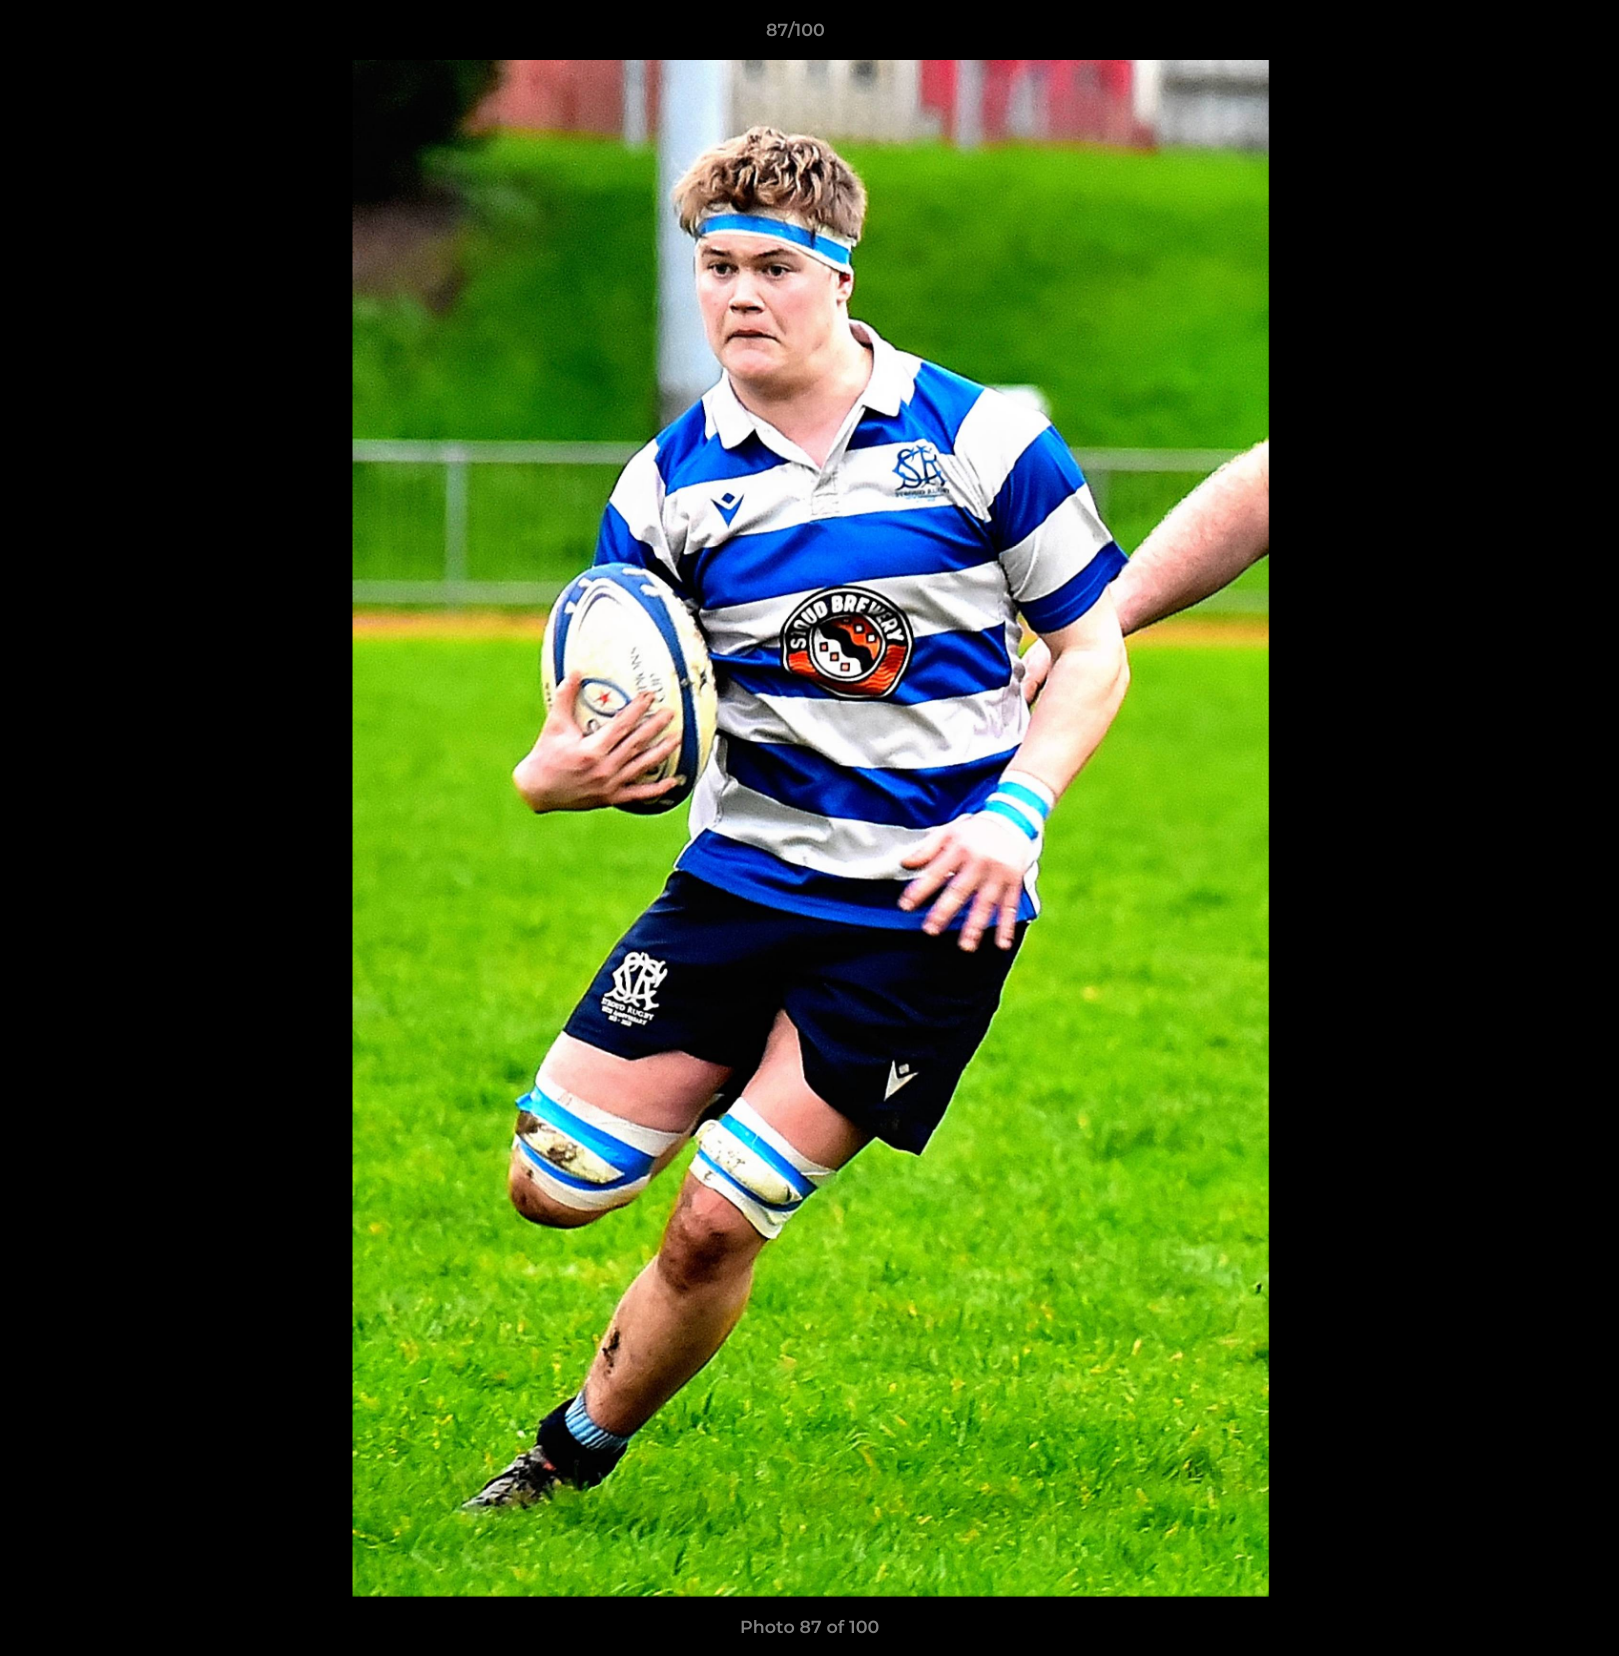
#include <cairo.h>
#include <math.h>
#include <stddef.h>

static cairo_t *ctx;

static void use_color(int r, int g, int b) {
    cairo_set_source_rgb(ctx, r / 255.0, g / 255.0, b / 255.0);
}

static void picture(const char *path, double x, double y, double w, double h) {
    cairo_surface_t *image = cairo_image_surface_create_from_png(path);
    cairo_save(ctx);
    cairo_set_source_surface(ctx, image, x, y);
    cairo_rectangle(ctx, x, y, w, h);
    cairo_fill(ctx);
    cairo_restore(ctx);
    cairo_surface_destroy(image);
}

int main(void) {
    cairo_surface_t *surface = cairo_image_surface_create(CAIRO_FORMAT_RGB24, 1619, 1656);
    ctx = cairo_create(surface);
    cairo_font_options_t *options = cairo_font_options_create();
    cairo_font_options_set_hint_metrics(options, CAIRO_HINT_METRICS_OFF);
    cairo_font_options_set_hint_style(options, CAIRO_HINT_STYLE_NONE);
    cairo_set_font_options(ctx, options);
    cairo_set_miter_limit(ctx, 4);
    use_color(0, 0, 0);
    cairo_paint(ctx);
    cairo_select_font_face(ctx, "Montserrat SemiBold", CAIRO_FONT_SLANT_NORMAL, CAIRO_FONT_WEIGHT_NORMAL);
    cairo_set_font_size(ctx, 17.5);
    use_color(128, 128, 128);
    cairo_move_to(ctx, 766, 36);
    cairo_show_text(ctx, "87/100");
    picture("img1.png", 352, 60, 918, 1537);
    cairo_move_to(ctx, 740, 1633);
    cairo_show_text(ctx, "Photo 87 of 100");
    cairo_surface_write_to_png(surface, "result.png");
    cairo_font_options_destroy(options);
    cairo_destroy(ctx);
    cairo_surface_destroy(surface);
    return 0;
}
